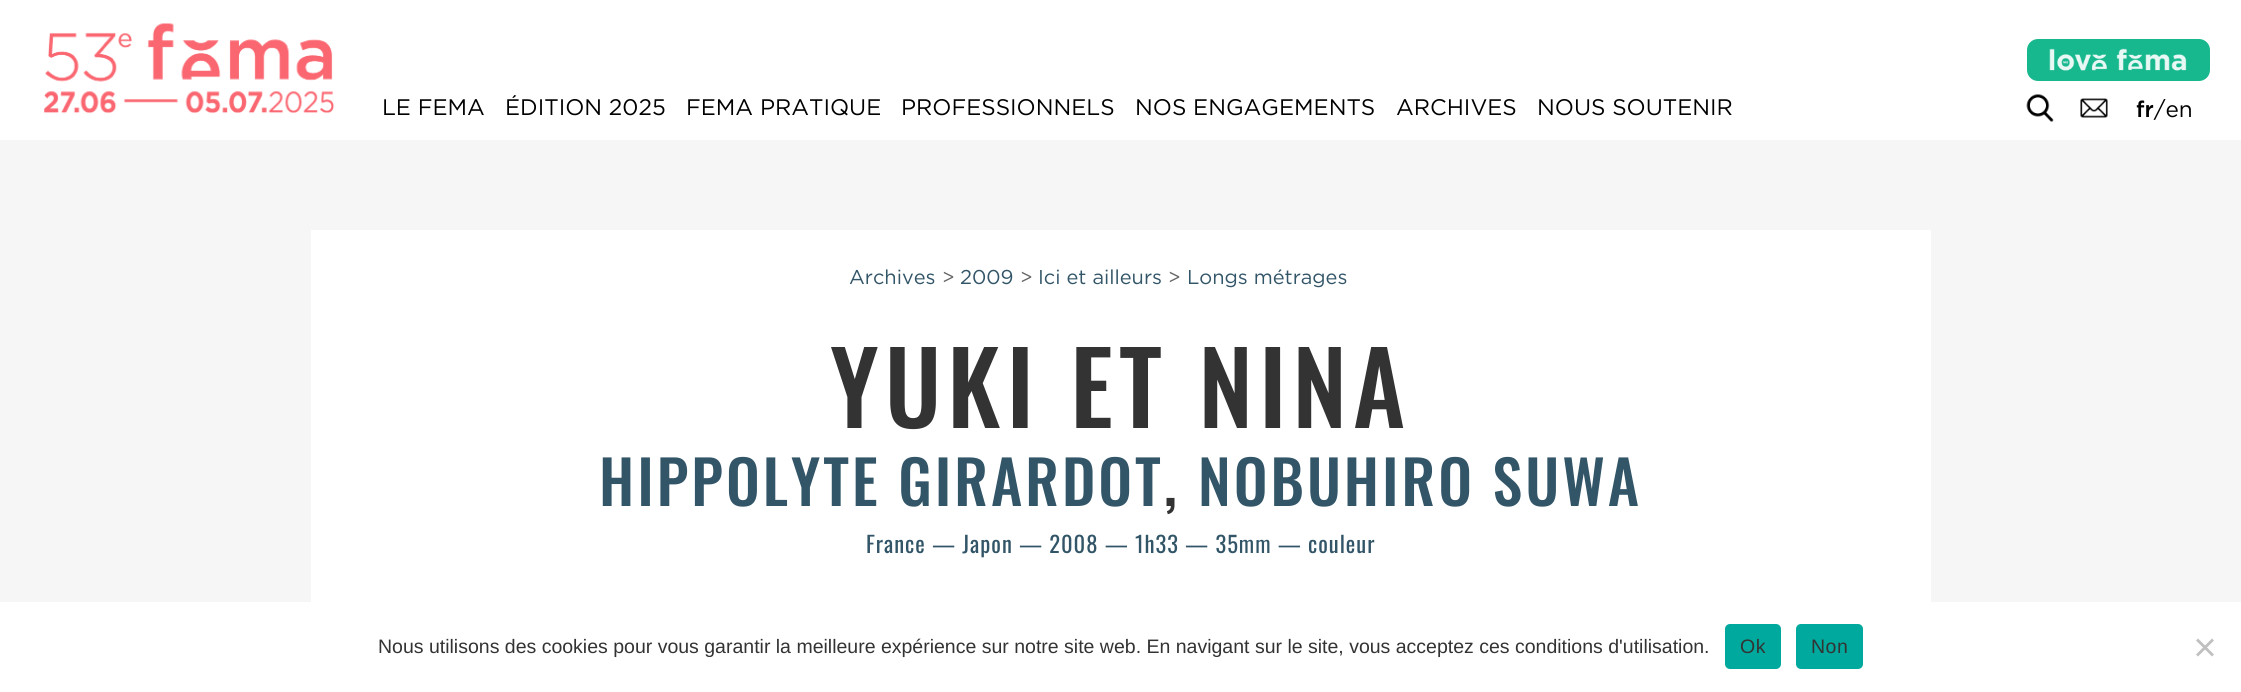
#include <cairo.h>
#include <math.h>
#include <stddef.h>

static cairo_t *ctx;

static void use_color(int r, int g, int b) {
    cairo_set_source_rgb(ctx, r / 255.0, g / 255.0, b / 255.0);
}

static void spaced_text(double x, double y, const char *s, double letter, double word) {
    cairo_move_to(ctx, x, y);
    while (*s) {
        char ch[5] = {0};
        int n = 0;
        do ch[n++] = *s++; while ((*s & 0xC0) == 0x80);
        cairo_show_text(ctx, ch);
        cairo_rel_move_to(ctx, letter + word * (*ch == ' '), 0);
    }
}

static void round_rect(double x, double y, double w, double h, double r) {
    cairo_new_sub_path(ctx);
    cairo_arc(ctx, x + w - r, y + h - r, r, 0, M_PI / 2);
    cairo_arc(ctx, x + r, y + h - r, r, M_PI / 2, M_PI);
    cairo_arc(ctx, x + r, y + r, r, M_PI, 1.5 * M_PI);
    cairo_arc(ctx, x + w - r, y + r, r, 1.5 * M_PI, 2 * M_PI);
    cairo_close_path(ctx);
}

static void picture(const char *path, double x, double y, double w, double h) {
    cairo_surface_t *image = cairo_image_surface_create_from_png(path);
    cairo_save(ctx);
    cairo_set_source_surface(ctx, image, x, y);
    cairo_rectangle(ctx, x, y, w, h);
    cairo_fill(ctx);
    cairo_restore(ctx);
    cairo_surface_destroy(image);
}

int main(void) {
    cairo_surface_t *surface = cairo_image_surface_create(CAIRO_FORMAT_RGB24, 2241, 692);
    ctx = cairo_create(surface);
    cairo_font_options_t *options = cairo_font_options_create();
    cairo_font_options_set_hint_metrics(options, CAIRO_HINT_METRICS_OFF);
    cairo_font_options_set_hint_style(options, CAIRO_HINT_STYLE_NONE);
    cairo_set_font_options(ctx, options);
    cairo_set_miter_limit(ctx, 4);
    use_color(246, 246, 246);
    cairo_paint(ctx);
    use_color(255, 255, 255);
    cairo_rectangle(ctx, 0, 0, 2241, 140);
    cairo_fill(ctx);
    picture("img1.png", 44, 23, 290, 91);
    cairo_select_font_face(ctx, "Gotham", CAIRO_FONT_SLANT_NORMAL, CAIRO_FONT_WEIGHT_NORMAL);
    cairo_set_font_size(ctx, 22.5);
    use_color(0, 0, 0);
    cairo_move_to(ctx, 382, 115);
    cairo_show_text(ctx, "LE FEMA");
    cairo_move_to(ctx, 505, 115);
    cairo_show_text(ctx, "ÉDITION 2025");
    cairo_move_to(ctx, 686, 115);
    cairo_show_text(ctx, "FEMA PRATIQUE");
    cairo_move_to(ctx, 901, 115);
    cairo_show_text(ctx, "PROFESSIONNELS");
    cairo_move_to(ctx, 1135, 115);
    cairo_show_text(ctx, "NOS ENGAGEMENTS");
    cairo_move_to(ctx, 1396, 115);
    cairo_show_text(ctx, "ARCHIVES");
    cairo_move_to(ctx, 1537, 115);
    cairo_show_text(ctx, "NOUS SOUTENIR");
    use_color(24, 184, 142);
    round_rect(2027, 39, 183, 42, 11);
    cairo_fill(ctx);
    picture("img2.png", 2049, 48, 138, 23);
    picture("img3.png", 2026, 94, 28, 28);
    picture("img4.png", 2080, 98, 28, 20);
    cairo_select_font_face(ctx, "Gotham Medium", CAIRO_FONT_SLANT_NORMAL, CAIRO_FONT_WEIGHT_NORMAL);
    use_color(0, 0, 0);
    cairo_move_to(ctx, 2136, 117);
    cairo_show_text(ctx, "fr");
    cairo_select_font_face(ctx, "Gotham", CAIRO_FONT_SLANT_NORMAL, CAIRO_FONT_WEIGHT_NORMAL);
    cairo_move_to(ctx, 2154, 117);
    cairo_show_text(ctx, "/en");
    use_color(255, 255, 255);
    cairo_rectangle(ctx, 311, 230, 1620, 372);
    cairo_fill(ctx);
    cairo_set_font_size(ctx, 20);
    use_color(50, 85, 104);
    cairo_move_to(ctx, 849, 284);
    cairo_show_text(ctx, "Archives");
    use_color(102, 102, 102);
    cairo_move_to(ctx, 942, 284);
    cairo_show_text(ctx, ">");
    use_color(50, 85, 104);
    cairo_move_to(ctx, 960, 284);
    cairo_show_text(ctx, "2009");
    use_color(102, 102, 102);
    cairo_move_to(ctx, 1020, 284);
    cairo_show_text(ctx, ">");
    use_color(50, 85, 104);
    cairo_move_to(ctx, 1038, 284);
    cairo_show_text(ctx, "Ici et ailleurs");
    use_color(102, 102, 102);
    cairo_move_to(ctx, 1168, 284);
    cairo_show_text(ctx, ">");
    use_color(50, 85, 104);
    cairo_move_to(ctx, 1187, 284);
    cairo_show_text(ctx, "Longs métrages");
    cairo_select_font_face(ctx, "Oswald Medium", CAIRO_FONT_SLANT_NORMAL, CAIRO_FONT_WEIGHT_NORMAL);
    cairo_set_font_size(ctx, 100);
    use_color(51, 51, 51);
    spaced_text(830, 428, "YUKI ET NINA", 6, 0);
    cairo_set_font_size(ctx, 60);
    use_color(50, 85, 104);
    spaced_text(599, 506, "HIPPOLYTE GIRARDOT", 3, 0);
    use_color(51, 51, 51);
    spaced_text(1164, 506, ",", 3, 0);
    use_color(50, 85, 104);
    spaced_text(1198, 506, "NOBUHIRO SUWA", 3, 0);
    cairo_select_font_face(ctx, "Oswald", CAIRO_FONT_SLANT_NORMAL, CAIRO_FONT_WEIGHT_NORMAL);
    cairo_set_font_size(ctx, 22.5);
    spaced_text(866, 553, "France — Japon — 2008 — 1h33 — 35mm — couleur", 1, 0);
    use_color(255, 255, 255);
    cairo_rectangle(ctx, 0, 602, 2241, 90);
    cairo_fill(ctx);
    cairo_select_font_face(ctx, "Liberation Sans", CAIRO_FONT_SLANT_NORMAL, CAIRO_FONT_WEIGHT_NORMAL);
    cairo_set_font_size(ctx, 19.5);
    use_color(51, 51, 51);
    cairo_move_to(ctx, 378, 653);
    cairo_show_text(ctx, "Nous utilisons des cookies pour vous garantir la meilleure expérience sur notre site web. En navigant sur le site, vous acceptez ces conditions d'utilisation.");
    use_color(0, 169, 157);
    round_rect(1725, 624, 56, 45, 5);
    cairo_fill(ctx);
    use_color(51, 51, 51);
    spaced_text(1740, 653, "Ok", 0.5, 0);
    use_color(0, 169, 157);
    round_rect(1796, 624, 67, 45, 5);
    cairo_fill(ctx);
    use_color(51, 51, 51);
    spaced_text(1811, 653, "Non", 0.5, 0);
    use_color(192, 192, 192);
    cairo_new_path(ctx);
    cairo_move_to(ctx, 2212, 638.5);
    cairo_line_to(ctx, 2214, 640.5);
    cairo_line_to(ctx, 2198, 656.5);
    cairo_line_to(ctx, 2196, 654.5);
    cairo_close_path(ctx);
    cairo_fill(ctx);
    cairo_new_path(ctx);
    cairo_move_to(ctx, 2196, 640.5);
    cairo_line_to(ctx, 2198, 638.5);
    cairo_line_to(ctx, 2214, 654.5);
    cairo_line_to(ctx, 2212, 656.5);
    cairo_close_path(ctx);
    cairo_fill(ctx);
    cairo_surface_write_to_png(surface, "result.png");
    cairo_font_options_destroy(options);
    cairo_destroy(ctx);
    cairo_surface_destroy(surface);
    return 0;
}
